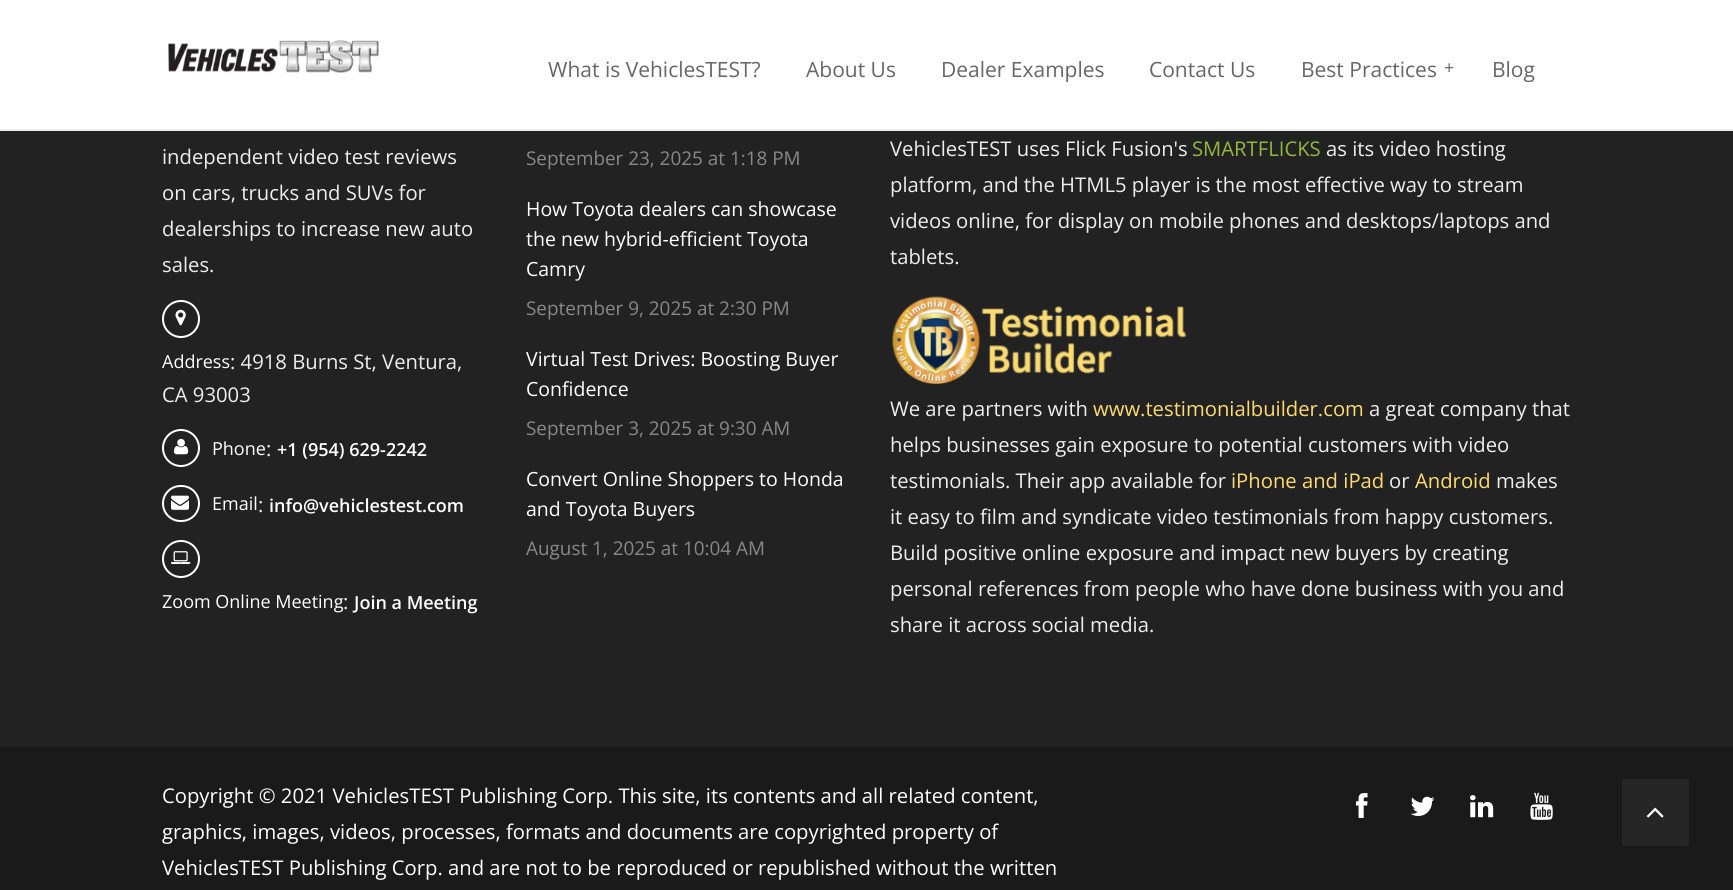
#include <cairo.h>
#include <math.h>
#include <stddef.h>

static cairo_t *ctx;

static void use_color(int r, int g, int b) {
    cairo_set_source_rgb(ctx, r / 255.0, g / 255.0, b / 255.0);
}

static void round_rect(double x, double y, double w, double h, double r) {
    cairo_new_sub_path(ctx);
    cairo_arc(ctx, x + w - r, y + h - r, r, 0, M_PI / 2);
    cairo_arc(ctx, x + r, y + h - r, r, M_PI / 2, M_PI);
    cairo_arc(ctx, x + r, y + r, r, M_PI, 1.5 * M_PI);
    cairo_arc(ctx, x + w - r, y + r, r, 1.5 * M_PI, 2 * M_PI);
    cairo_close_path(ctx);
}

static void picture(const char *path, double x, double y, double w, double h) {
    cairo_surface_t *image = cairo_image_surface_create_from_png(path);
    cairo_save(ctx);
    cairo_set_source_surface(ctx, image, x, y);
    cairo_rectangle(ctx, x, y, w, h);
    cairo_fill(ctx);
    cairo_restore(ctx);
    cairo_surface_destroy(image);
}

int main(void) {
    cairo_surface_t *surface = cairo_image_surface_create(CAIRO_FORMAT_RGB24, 1733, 890);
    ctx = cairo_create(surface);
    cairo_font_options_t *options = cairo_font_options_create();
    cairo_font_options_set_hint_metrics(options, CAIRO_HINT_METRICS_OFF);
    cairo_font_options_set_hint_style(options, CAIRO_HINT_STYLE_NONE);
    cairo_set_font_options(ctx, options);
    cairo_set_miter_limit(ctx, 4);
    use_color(34, 34, 34);
    cairo_paint(ctx);
    use_color(255, 255, 255);
    cairo_rectangle(ctx, 0, 0, 1733, 129);
    cairo_fill(ctx);
    use_color(234, 234, 234);
    cairo_rectangle(ctx, 0, 129, 1733, 2);
    cairo_fill(ctx);
    picture("img1.png", 168, 40, 211, 33);
    cairo_select_font_face(ctx, "Open Sans", CAIRO_FONT_SLANT_NORMAL, CAIRO_FONT_WEIGHT_NORMAL);
    cairo_set_font_size(ctx, 21);
    use_color(102, 102, 102);
    cairo_move_to(ctx, 548, 77);
    cairo_show_text(ctx, "What is VehiclesTEST?");
    cairo_move_to(ctx, 806, 77);
    cairo_show_text(ctx, "About Us");
    cairo_move_to(ctx, 941, 77);
    cairo_show_text(ctx, "Dealer Examples");
    cairo_move_to(ctx, 1149, 77);
    cairo_show_text(ctx, "Contact Us");
    cairo_move_to(ctx, 1301, 77);
    cairo_show_text(ctx, "Best Practices");
    cairo_set_font_size(ctx, 18);
    cairo_move_to(ctx, 1444, 74);
    cairo_show_text(ctx, "+");
    cairo_set_font_size(ctx, 21);
    cairo_move_to(ctx, 1492, 77);
    cairo_show_text(ctx, "Blog");
    cairo_set_font_size(ctx, 20.25);
    use_color(238, 238, 238);
    cairo_move_to(ctx, 162, 164);
    cairo_show_text(ctx, "independent video test reviews");
    cairo_move_to(ctx, 162, 200);
    cairo_show_text(ctx, "on cars, trucks and SUVs for");
    cairo_move_to(ctx, 162, 236);
    cairo_show_text(ctx, "dealerships to increase new auto");
    cairo_move_to(ctx, 162, 272);
    cairo_show_text(ctx, "sales.");
    cairo_new_path(ctx);
    cairo_arc(ctx, 181, 319, 18, 0, 2 * M_PI);
    use_color(255, 255, 255);
    cairo_stroke(ctx);
    picture("img2.png", 175, 309, 11, 17);
    cairo_set_font_size(ctx, 18);
    cairo_move_to(ctx, 162, 368);
    cairo_show_text(ctx, "Address");
    cairo_set_font_size(ctx, 20.25);
    use_color(238, 238, 238);
    cairo_move_to(ctx, 230, 369);
    cairo_show_text(ctx, ": 4918 Burns St, Ventura,");
    cairo_move_to(ctx, 162, 402);
    cairo_show_text(ctx, "CA 93003");
    cairo_new_path(ctx);
    cairo_arc(ctx, 181, 448, 18, 0, 2 * M_PI);
    use_color(255, 255, 255);
    cairo_stroke(ctx);
    picture("img3.png", 174, 438, 15, 17);
    cairo_set_font_size(ctx, 18);
    cairo_move_to(ctx, 212, 455);
    cairo_show_text(ctx, "Phone");
    cairo_set_font_size(ctx, 20.25);
    use_color(238, 238, 238);
    cairo_move_to(ctx, 266, 456);
    cairo_show_text(ctx, ":");
    cairo_select_font_face(ctx, "Open Sans SemiBold", CAIRO_FONT_SLANT_NORMAL, CAIRO_FONT_WEIGHT_NORMAL);
    cairo_set_font_size(ctx, 18);
    use_color(255, 255, 255);
    cairo_move_to(ctx, 277, 456);
    cairo_show_text(ctx, "+1 (954) 629-2242");
    round_rect(163, 486, 36, 35, 17.5);
    cairo_stroke(ctx);
    picture("img4.png", 171, 495, 18, 15);
    cairo_select_font_face(ctx, "Open Sans", CAIRO_FONT_SLANT_NORMAL, CAIRO_FONT_WEIGHT_NORMAL);
    cairo_move_to(ctx, 212, 510);
    cairo_show_text(ctx, "Email");
    cairo_set_font_size(ctx, 20.25);
    use_color(238, 238, 238);
    cairo_move_to(ctx, 258, 512);
    cairo_show_text(ctx, ":");
    cairo_select_font_face(ctx, "Open Sans SemiBold", CAIRO_FONT_SLANT_NORMAL, CAIRO_FONT_WEIGHT_NORMAL);
    cairo_set_font_size(ctx, 18);
    use_color(255, 255, 255);
    cairo_move_to(ctx, 269, 512);
    cairo_show_text(ctx, "info@vehiclestest.com");
    cairo_new_path(ctx);
    cairo_arc(ctx, 181, 559, 18, 0, 2 * M_PI);
    cairo_stroke(ctx);
    picture("img5.png", 171, 551, 20, 13);
    cairo_select_font_face(ctx, "Open Sans", CAIRO_FONT_SLANT_NORMAL, CAIRO_FONT_WEIGHT_NORMAL);
    cairo_move_to(ctx, 162, 608);
    cairo_show_text(ctx, "Zoom Online Meeting");
    cairo_set_font_size(ctx, 20.25);
    use_color(238, 238, 238);
    cairo_move_to(ctx, 343, 609);
    cairo_show_text(ctx, ":");
    cairo_select_font_face(ctx, "Open Sans SemiBold", CAIRO_FONT_SLANT_NORMAL, CAIRO_FONT_WEIGHT_NORMAL);
    cairo_set_font_size(ctx, 18);
    use_color(255, 255, 255);
    cairo_move_to(ctx, 354, 609);
    cairo_show_text(ctx, "Join a Meeting");
    cairo_select_font_face(ctx, "Open Sans", CAIRO_FONT_SLANT_NORMAL, CAIRO_FONT_WEIGHT_NORMAL);
    cairo_set_font_size(ctx, 18.9);
    use_color(136, 136, 136);
    cairo_move_to(ctx, 526, 165);
    cairo_show_text(ctx, "September 23, 2025 at 1:18 PM");
    cairo_set_font_size(ctx, 19.5);
    use_color(255, 255, 255);
    cairo_move_to(ctx, 526, 216);
    cairo_show_text(ctx, "How Toyota dealers can showcase");
    cairo_move_to(ctx, 526, 246);
    cairo_show_text(ctx, "the new hybrid-efficient Toyota");
    cairo_move_to(ctx, 526, 276);
    cairo_show_text(ctx, "Camry");
    cairo_set_font_size(ctx, 18.9);
    use_color(136, 136, 136);
    cairo_move_to(ctx, 526, 315);
    cairo_show_text(ctx, "September 9, 2025 at 2:30 PM");
    cairo_set_font_size(ctx, 19.5);
    use_color(255, 255, 255);
    cairo_move_to(ctx, 526, 366);
    cairo_show_text(ctx, "Virtual Test Drives: Boosting Buyer");
    cairo_move_to(ctx, 526, 396);
    cairo_show_text(ctx, "Confidence");
    cairo_set_font_size(ctx, 18.9);
    use_color(136, 136, 136);
    cairo_move_to(ctx, 526, 435);
    cairo_show_text(ctx, "September 3, 2025 at 9:30 AM");
    cairo_set_font_size(ctx, 19.5);
    use_color(255, 255, 255);
    cairo_move_to(ctx, 526, 486);
    cairo_show_text(ctx, "Convert Online Shoppers to Honda");
    cairo_move_to(ctx, 526, 516);
    cairo_show_text(ctx, "and Toyota Buyers");
    cairo_set_font_size(ctx, 18.9);
    use_color(136, 136, 136);
    cairo_move_to(ctx, 526, 555);
    cairo_show_text(ctx, "August 1, 2025 at 10:04 AM");
    cairo_set_font_size(ctx, 20.25);
    use_color(238, 238, 238);
    cairo_move_to(ctx, 890, 156);
    cairo_show_text(ctx, "VehiclesTEST uses Flick Fusion's");
    use_color(148, 184, 62);
    cairo_move_to(ctx, 1192, 156);
    cairo_show_text(ctx, "SMARTFLICKS");
    use_color(238, 238, 238);
    cairo_move_to(ctx, 1326, 156);
    cairo_show_text(ctx, "as its video hosting");
    cairo_move_to(ctx, 890, 192);
    cairo_show_text(ctx, "platform, and the HTML5 player is the most effective way to stream");
    cairo_move_to(ctx, 890, 228);
    cairo_show_text(ctx, "videos online, for display on mobile phones and desktops/laptops and");
    cairo_move_to(ctx, 890, 264);
    cairo_show_text(ctx, "tablets.");
    picture("img6.png", 892, 296, 295, 88);
    cairo_move_to(ctx, 890, 416);
    cairo_show_text(ctx, "We are partners with");
    use_color(255, 219, 112);
    cairo_move_to(ctx, 1093, 416);
    cairo_show_text(ctx, "www.testimonialbuilder.com");
    use_color(238, 238, 238);
    cairo_move_to(ctx, 1369, 416);
    cairo_show_text(ctx, "a great company that");
    cairo_move_to(ctx, 890, 452);
    cairo_show_text(ctx, "helps businesses gain exposure to potential customers with video");
    cairo_move_to(ctx, 890, 488);
    cairo_show_text(ctx, "testimonials. Their app available for");
    use_color(255, 219, 112);
    cairo_move_to(ctx, 1231, 488);
    cairo_show_text(ctx, "iPhone and iPad");
    use_color(238, 238, 238);
    cairo_move_to(ctx, 1389, 488);
    cairo_show_text(ctx, "or");
    use_color(255, 219, 112);
    cairo_move_to(ctx, 1415, 488);
    cairo_show_text(ctx, "Android");
    use_color(238, 238, 238);
    cairo_move_to(ctx, 1496, 488);
    cairo_show_text(ctx, "makes");
    cairo_move_to(ctx, 890, 524);
    cairo_show_text(ctx, "it easy to film and syndicate video testimonials from happy customers.");
    cairo_move_to(ctx, 890, 560);
    cairo_show_text(ctx, "Build positive online exposure and impact new buyers by creating");
    cairo_move_to(ctx, 890, 596);
    cairo_show_text(ctx, "personal references from people who have done business with you and");
    cairo_move_to(ctx, 890, 632);
    cairo_show_text(ctx, "share it across social media.");
    use_color(26, 26, 26);
    cairo_rectangle(ctx, 0, 747, 1733, 143);
    cairo_fill(ctx);
    use_color(255, 255, 255);
    cairo_move_to(ctx, 162, 803);
    cairo_show_text(ctx, "Copyright © 2021 VehiclesTEST Publishing Corp. This site, its contents and all related content,");
    cairo_move_to(ctx, 162, 839);
    cairo_show_text(ctx, "graphics, images, videos, processes, formats and documents are copyrighted property of");
    cairo_move_to(ctx, 162, 875);
    cairo_show_text(ctx, "VehiclesTEST Publishing Corp. and are not to be reproduced or republished without the written");
    picture("img7.png", 1356, 793, 12, 25);
    picture("img8.png", 1410, 796, 25, 20);
    picture("img9.png", 1470, 795, 24, 23);
    picture("img10.png", 1530, 792, 23, 28);
    use_color(38, 38, 38);
    round_rect(1622, 779, 67, 67, 3);
    cairo_fill(ctx);
    picture("img11.png", 1646, 807, 18, 11);
    cairo_surface_write_to_png(surface, "result.png");
    cairo_font_options_destroy(options);
    cairo_destroy(ctx);
    cairo_surface_destroy(surface);
    return 0;
}
